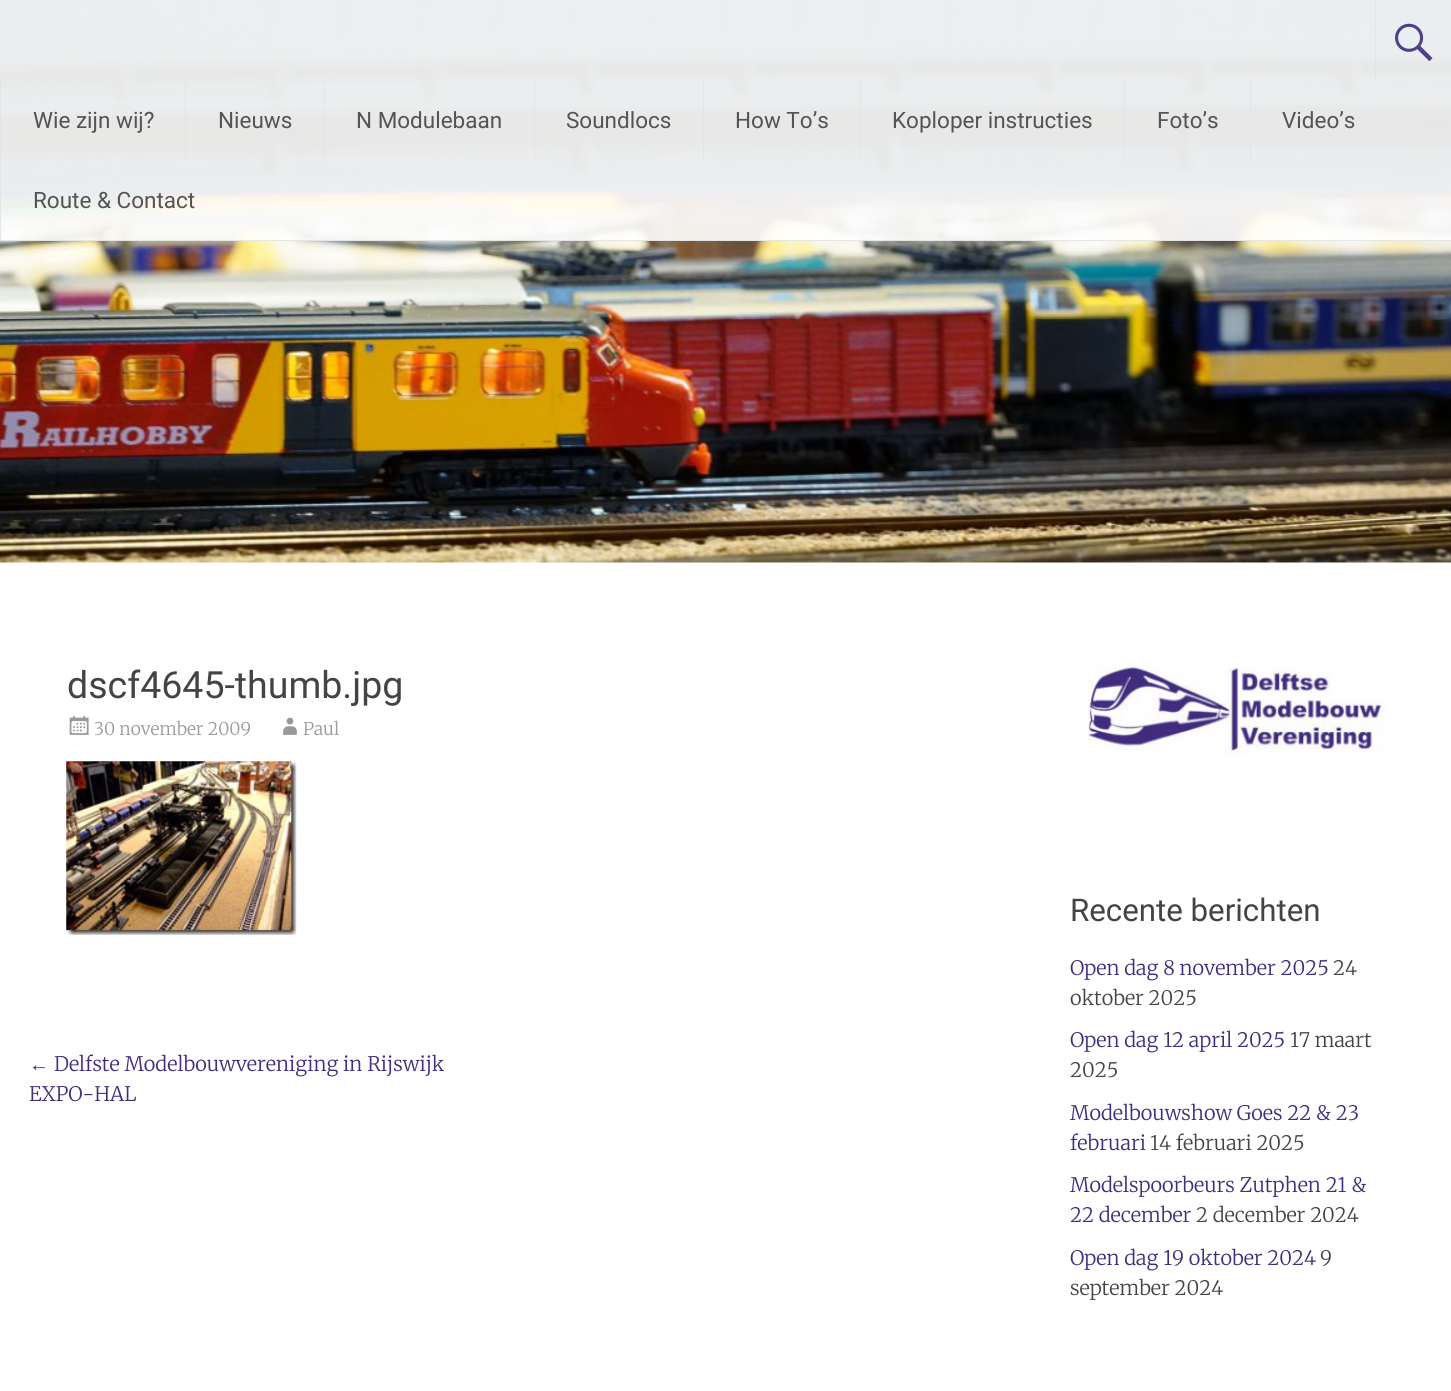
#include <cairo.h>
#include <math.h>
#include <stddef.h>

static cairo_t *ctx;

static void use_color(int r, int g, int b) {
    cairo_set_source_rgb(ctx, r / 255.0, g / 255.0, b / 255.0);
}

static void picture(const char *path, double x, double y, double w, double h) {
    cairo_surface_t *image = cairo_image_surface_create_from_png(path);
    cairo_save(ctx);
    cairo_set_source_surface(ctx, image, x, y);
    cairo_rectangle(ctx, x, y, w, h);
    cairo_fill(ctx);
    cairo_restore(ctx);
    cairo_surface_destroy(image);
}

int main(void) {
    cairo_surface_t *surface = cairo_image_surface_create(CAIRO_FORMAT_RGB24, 1451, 1391);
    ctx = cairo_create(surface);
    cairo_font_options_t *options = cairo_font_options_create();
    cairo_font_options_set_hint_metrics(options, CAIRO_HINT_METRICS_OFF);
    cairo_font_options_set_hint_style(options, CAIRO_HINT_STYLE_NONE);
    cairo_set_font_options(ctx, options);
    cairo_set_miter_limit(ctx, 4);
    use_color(255, 255, 255);
    cairo_paint(ctx);
    picture("img1.png", 0, 0, 1451, 563);
    cairo_set_source_rgba(ctx, 1, 1, 1, 0.9);
    cairo_rectangle(ctx, 0, 0, 1451, 241);
    cairo_fill(ctx);
    cairo_set_source_rgba(ctx, 0.882, 0.894, 0.902, 0.9);
    cairo_rectangle(ctx, 0, 240, 1451, 1);
    cairo_fill(ctx);
    cairo_rectangle(ctx, 1375, 0, 1, 80);
    cairo_fill(ctx);
    picture("img2.png", 1395, 23, 38, 39);
    cairo_rectangle(ctx, 0, 80, 1, 80);
    cairo_fill(ctx);
    cairo_select_font_face(ctx, "Roboto", CAIRO_FONT_SLANT_NORMAL, CAIRO_FONT_WEIGHT_NORMAL);
    cairo_set_font_size(ctx, 22.5);
    use_color(84, 84, 84);
    cairo_move_to(ctx, 33, 128);
    cairo_show_text(ctx, "Wie zijn wij?");
    cairo_set_source_rgba(ctx, 0.882, 0.894, 0.902, 0.9);
    cairo_rectangle(ctx, 185, 80, 1, 80);
    cairo_fill(ctx);
    use_color(84, 84, 84);
    cairo_move_to(ctx, 218, 128);
    cairo_show_text(ctx, "Nieuws");
    cairo_set_source_rgba(ctx, 0.882, 0.894, 0.902, 0.9);
    cairo_rectangle(ctx, 324, 80, 1, 80);
    cairo_fill(ctx);
    use_color(84, 84, 84);
    cairo_move_to(ctx, 356, 128);
    cairo_show_text(ctx, "N Modulebaan");
    cairo_set_source_rgba(ctx, 0.882, 0.894, 0.902, 0.9);
    cairo_rectangle(ctx, 534, 80, 1, 80);
    cairo_fill(ctx);
    use_color(84, 84, 84);
    cairo_move_to(ctx, 566, 128);
    cairo_show_text(ctx, "Soundlocs");
    cairo_set_source_rgba(ctx, 0.882, 0.894, 0.902, 0.9);
    cairo_rectangle(ctx, 703, 80, 1, 80);
    cairo_fill(ctx);
    use_color(84, 84, 84);
    cairo_move_to(ctx, 735, 128);
    cairo_show_text(ctx, "How To’s");
    cairo_set_source_rgba(ctx, 0.882, 0.894, 0.902, 0.9);
    cairo_rectangle(ctx, 860, 80, 1, 80);
    cairo_fill(ctx);
    use_color(84, 84, 84);
    cairo_move_to(ctx, 892, 128);
    cairo_show_text(ctx, "Koploper instructies");
    cairo_set_source_rgba(ctx, 0.882, 0.894, 0.902, 0.9);
    cairo_rectangle(ctx, 1124, 80, 1, 80);
    cairo_fill(ctx);
    use_color(84, 84, 84);
    cairo_move_to(ctx, 1157, 128);
    cairo_show_text(ctx, "Foto’s");
    cairo_set_source_rgba(ctx, 0.882, 0.894, 0.902, 0.9);
    cairo_rectangle(ctx, 1250, 80, 1, 80);
    cairo_fill(ctx);
    use_color(84, 84, 84);
    cairo_move_to(ctx, 1282, 128);
    cairo_show_text(ctx, "Video’s");
    cairo_set_source_rgba(ctx, 0.882, 0.894, 0.902, 0.9);
    cairo_rectangle(ctx, 0, 160, 1, 80);
    cairo_fill(ctx);
    use_color(84, 84, 84);
    cairo_move_to(ctx, 33, 208);
    cairo_show_text(ctx, "Route & Contact");
    cairo_set_font_size(ctx, 37.5);
    use_color(68, 68, 68);
    cairo_move_to(ctx, 67, 698);
    cairo_show_text(ctx, "dscf4645-thumb.jpg");
    picture("img3.png", 69, 715, 20, 20);
    cairo_select_font_face(ctx, "Merriweather Light", CAIRO_FONT_SLANT_NORMAL, CAIRO_FONT_WEIGHT_NORMAL);
    cairo_set_font_size(ctx, 17.5);
    use_color(153, 153, 153);
    cairo_move_to(ctx, 94, 735);
    cairo_show_text(ctx, "30 november 2009");
    picture("img4.png", 283, 717, 14, 18);
    cairo_move_to(ctx, 303, 735);
    cairo_show_text(ctx, "Paul");
    picture("img5.png", 66, 761, 231, 174);
    cairo_select_font_face(ctx, "Liberation Serif", CAIRO_FONT_SLANT_NORMAL, CAIRO_FONT_WEIGHT_NORMAL);
    cairo_set_font_size(ctx, 20);
    use_color(64, 45, 126);
    cairo_move_to(ctx, 29, 1071);
    cairo_show_text(ctx, "←");
    cairo_select_font_face(ctx, "Merriweather Light", CAIRO_FONT_SLANT_NORMAL, CAIRO_FONT_WEIGHT_NORMAL);
    cairo_move_to(ctx, 54, 1071);
    cairo_show_text(ctx, "Delfste Modelbouwvereniging in Rijswijk");
    cairo_move_to(ctx, 29, 1101);
    cairo_show_text(ctx, "EXPO-HAL");
    picture("img6.png", 1088, 661, 297, 95);
    cairo_select_font_face(ctx, "Roboto", CAIRO_FONT_SLANT_NORMAL, CAIRO_FONT_WEIGHT_NORMAL);
    cairo_set_font_size(ctx, 31.25);
    use_color(68, 68, 68);
    cairo_move_to(ctx, 1070, 921);
    cairo_show_text(ctx, "Recente berichten");
    cairo_select_font_face(ctx, "Merriweather Light", CAIRO_FONT_SLANT_NORMAL, CAIRO_FONT_WEIGHT_NORMAL);
    cairo_set_font_size(ctx, 20);
    use_color(64, 45, 126);
    cairo_move_to(ctx, 1070, 975);
    cairo_show_text(ctx, "Open dag 8 november 2025");
    use_color(68, 68, 68);
    cairo_move_to(ctx, 1333, 975);
    cairo_show_text(ctx, "24");
    cairo_move_to(ctx, 1070, 1005);
    cairo_show_text(ctx, "oktober 2025");
    use_color(64, 45, 126);
    cairo_move_to(ctx, 1070, 1047);
    cairo_show_text(ctx, "Open dag 12 april 2025");
    use_color(68, 68, 68);
    cairo_move_to(ctx, 1290, 1047);
    cairo_show_text(ctx, "17 maart");
    cairo_move_to(ctx, 1070, 1077);
    cairo_show_text(ctx, "2025");
    use_color(64, 45, 126);
    cairo_move_to(ctx, 1070, 1120);
    cairo_show_text(ctx, "Modelbouwshow Goes 22 & 23");
    cairo_move_to(ctx, 1070, 1150);
    cairo_show_text(ctx, "februari");
    use_color(68, 68, 68);
    cairo_move_to(ctx, 1150, 1150);
    cairo_show_text(ctx, "14 februari 2025");
    use_color(64, 45, 126);
    cairo_move_to(ctx, 1070, 1192);
    cairo_show_text(ctx, "Modelspoorbeurs Zutphen 21 &");
    cairo_move_to(ctx, 1070, 1222);
    cairo_show_text(ctx, "22 december");
    use_color(68, 68, 68);
    cairo_move_to(ctx, 1196, 1222);
    cairo_show_text(ctx, "2 december 2024");
    use_color(64, 45, 126);
    cairo_move_to(ctx, 1070, 1265);
    cairo_show_text(ctx, "Open dag 19 oktober 2024");
    use_color(68, 68, 68);
    cairo_move_to(ctx, 1320, 1265);
    cairo_show_text(ctx, "9");
    cairo_move_to(ctx, 1070, 1295);
    cairo_show_text(ctx, "september 2024");
    cairo_surface_write_to_png(surface, "result.png");
    cairo_font_options_destroy(options);
    cairo_destroy(ctx);
    cairo_surface_destroy(surface);
    return 0;
}
